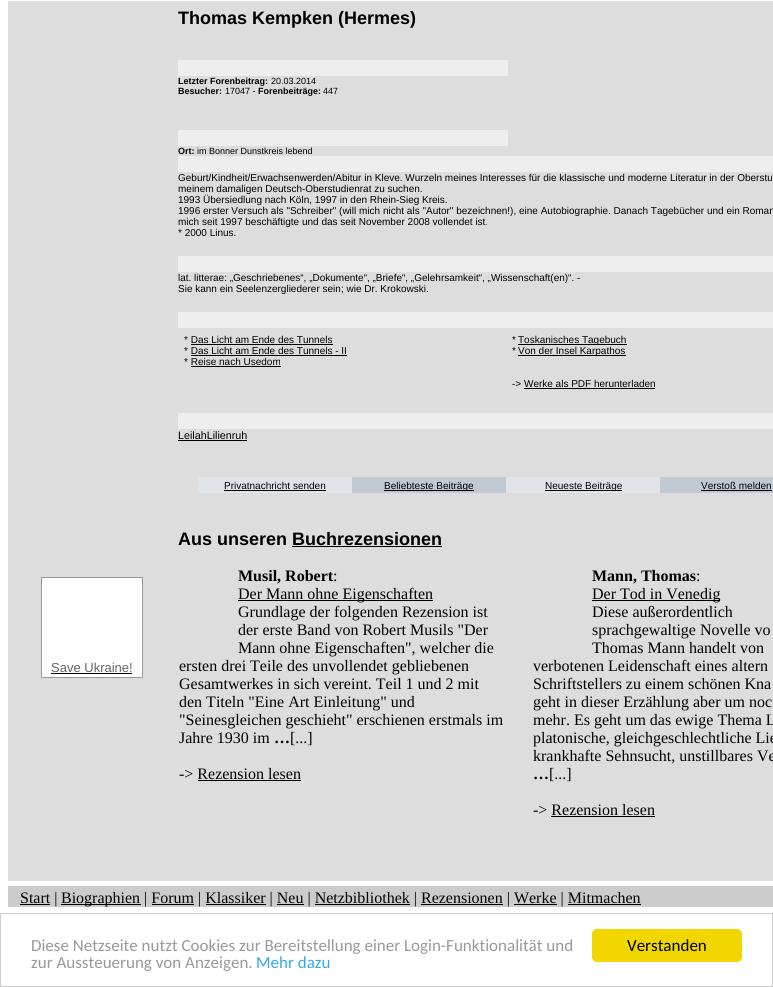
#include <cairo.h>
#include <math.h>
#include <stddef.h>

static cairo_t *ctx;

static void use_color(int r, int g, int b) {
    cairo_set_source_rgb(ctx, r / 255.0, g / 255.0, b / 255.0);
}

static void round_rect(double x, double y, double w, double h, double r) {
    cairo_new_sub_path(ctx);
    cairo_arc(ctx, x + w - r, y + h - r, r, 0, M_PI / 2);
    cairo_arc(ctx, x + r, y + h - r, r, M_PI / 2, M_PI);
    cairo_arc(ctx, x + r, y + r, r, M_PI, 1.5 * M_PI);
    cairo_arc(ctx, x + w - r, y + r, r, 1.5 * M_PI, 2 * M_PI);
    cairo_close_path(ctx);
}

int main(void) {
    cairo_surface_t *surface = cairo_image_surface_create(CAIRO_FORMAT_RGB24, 773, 987);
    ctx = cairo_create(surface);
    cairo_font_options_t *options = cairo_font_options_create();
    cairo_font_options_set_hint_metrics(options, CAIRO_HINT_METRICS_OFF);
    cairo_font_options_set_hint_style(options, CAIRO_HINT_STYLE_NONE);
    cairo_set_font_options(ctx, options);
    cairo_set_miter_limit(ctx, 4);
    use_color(255, 255, 255);
    cairo_paint(ctx);
    use_color(221, 221, 221);
    cairo_rectangle(ctx, 8, 1, 765, 880);
    cairo_fill(ctx);
    use_color(255, 255, 255);
    cairo_rectangle(ctx, 41.5, 577.5, 101, 100);
    cairo_fill_preserve(ctx);
    use_color(153, 153, 153);
    cairo_set_line_width(ctx, 1);
    cairo_stroke(ctx);
    cairo_select_font_face(ctx, "Liberation Sans", CAIRO_FONT_SLANT_NORMAL, CAIRO_FONT_WEIGHT_NORMAL);
    cairo_set_font_size(ctx, 13);
    use_color(102, 102, 102);
    cairo_move_to(ctx, 51, 672);
    cairo_show_text(ctx, "Save Ukraine!");
    use_color(0, 0, 0);
    cairo_rectangle(ctx, 51, 673, 81, 1);
    cairo_fill(ctx);
    cairo_select_font_face(ctx, "Liberation Sans", CAIRO_FONT_SLANT_NORMAL, CAIRO_FONT_WEIGHT_BOLD);
    cairo_set_font_size(ctx, 18);
    cairo_move_to(ctx, 178, 24);
    cairo_show_text(ctx, "Thomas Kempken (Hermes)");
    use_color(238, 238, 238);
    cairo_rectangle(ctx, 178, 60, 330, 16);
    cairo_fill(ctx);
    cairo_set_font_size(ctx, 9);
    use_color(0, 0, 0);
    cairo_move_to(ctx, 178, 84);
    cairo_show_text(ctx, "Letzter Forenbeitrag:");
    cairo_select_font_face(ctx, "Liberation Sans", CAIRO_FONT_SLANT_NORMAL, CAIRO_FONT_WEIGHT_NORMAL);
    cairo_move_to(ctx, 271, 84);
    cairo_show_text(ctx, "20.03.2014");
    cairo_select_font_face(ctx, "Liberation Sans", CAIRO_FONT_SLANT_NORMAL, CAIRO_FONT_WEIGHT_BOLD);
    cairo_move_to(ctx, 178, 94);
    cairo_show_text(ctx, "Besucher:");
    cairo_select_font_face(ctx, "Liberation Sans", CAIRO_FONT_SLANT_NORMAL, CAIRO_FONT_WEIGHT_NORMAL);
    cairo_move_to(ctx, 225, 94);
    cairo_show_text(ctx, "17047 -");
    cairo_select_font_face(ctx, "Liberation Sans", CAIRO_FONT_SLANT_NORMAL, CAIRO_FONT_WEIGHT_BOLD);
    cairo_move_to(ctx, 258, 94);
    cairo_show_text(ctx, "Forenbeiträge:");
    cairo_select_font_face(ctx, "Liberation Sans", CAIRO_FONT_SLANT_NORMAL, CAIRO_FONT_WEIGHT_NORMAL);
    cairo_move_to(ctx, 323, 94);
    cairo_show_text(ctx, "447");
    use_color(238, 238, 238);
    cairo_rectangle(ctx, 178, 130, 330, 16);
    cairo_fill(ctx);
    cairo_select_font_face(ctx, "Liberation Sans", CAIRO_FONT_SLANT_NORMAL, CAIRO_FONT_WEIGHT_BOLD);
    use_color(0, 0, 0);
    cairo_move_to(ctx, 178, 154);
    cairo_show_text(ctx, "Ort:");
    cairo_select_font_face(ctx, "Liberation Sans", CAIRO_FONT_SLANT_NORMAL, CAIRO_FONT_WEIGHT_NORMAL);
    cairo_move_to(ctx, 197, 154);
    cairo_show_text(ctx, "im Bonner Dunstkreis lebend");
    use_color(238, 238, 238);
    cairo_rectangle(ctx, 178, 156, 595, 16);
    cairo_fill(ctx);
    cairo_set_font_size(ctx, 10);
    use_color(0, 0, 0);
    cairo_move_to(ctx, 178, 181);
    cairo_show_text(ctx, "Geburt/Kindheit/Erwachsenwerden/Abitur in Kleve. Wurzeln meines Interesses für die klassische und moderne Literatur in der Oberstu");
    cairo_move_to(ctx, 178, 192);
    cairo_show_text(ctx, "meinem damaligen Deutsch-Oberstudienrat zu suchen.");
    cairo_move_to(ctx, 178, 203);
    cairo_show_text(ctx, "1993 Übersiedlung nach Köln, 1997 in den Rhein-Sieg Kreis.");
    cairo_move_to(ctx, 178, 214);
    cairo_show_text(ctx, "1996 erster Versuch als \"Schreiber\" (will mich nicht als \"Autor\" bezeichnen!), eine Autobiographie. Danach Tagebücher und ein Roman");
    cairo_move_to(ctx, 178, 225);
    cairo_show_text(ctx, "mich seit 1997 beschäftigte und das seit November 2008 vollendet ist.");
    cairo_move_to(ctx, 178, 236);
    cairo_show_text(ctx, "* 2000 Linus.");
    use_color(238, 238, 238);
    cairo_rectangle(ctx, 178, 256, 595, 16);
    cairo_fill(ctx);
    use_color(0, 0, 0);
    cairo_move_to(ctx, 178, 281);
    cairo_show_text(ctx, "lat. litterae: „Geschriebenes“, „Dokumente“, „Briefe“, „Gelehrsamkeit“, „Wissenschaft(en)“. -");
    cairo_move_to(ctx, 178, 292);
    cairo_show_text(ctx, "Sie kann ein Seelenzergliederer sein; wie Dr. Krokowski.");
    use_color(238, 238, 238);
    cairo_rectangle(ctx, 178, 312, 595, 16);
    cairo_fill(ctx);
    use_color(0, 0, 0);
    cairo_move_to(ctx, 184, 343);
    cairo_show_text(ctx, "* Das Licht am Ende des Tunnels");
    cairo_rectangle(ctx, 191, 344, 142, 1);
    cairo_fill(ctx);
    cairo_move_to(ctx, 184, 354);
    cairo_show_text(ctx, "* Das Licht am Ende des Tunnels - II");
    cairo_rectangle(ctx, 191, 355, 156, 1);
    cairo_fill(ctx);
    cairo_move_to(ctx, 184, 365);
    cairo_show_text(ctx, "* Reise nach Usedom");
    cairo_rectangle(ctx, 191, 366, 90, 1);
    cairo_fill(ctx);
    cairo_move_to(ctx, 512, 343);
    cairo_show_text(ctx, "*");
    cairo_rectangle(ctx, 518, 344, 109, 1);
    cairo_fill(ctx);
    cairo_move_to(ctx, 518, 343);
    cairo_show_text(ctx, "Toskanisches Tagebuch");
    cairo_move_to(ctx, 512, 354);
    cairo_show_text(ctx, "*");
    cairo_rectangle(ctx, 518, 355, 108, 1);
    cairo_fill(ctx);
    cairo_move_to(ctx, 518, 354);
    cairo_show_text(ctx, "Von der Insel Karpathos");
    cairo_move_to(ctx, 512, 387);
    cairo_show_text(ctx, "-> Werke als PDF herunterladen");
    cairo_rectangle(ctx, 524, 388, 131, 1);
    cairo_fill(ctx);
    use_color(238, 238, 238);
    cairo_rectangle(ctx, 178, 413, 595, 16);
    cairo_fill(ctx);
    cairo_set_font_size(ctx, 10.75);
    use_color(0, 0, 0);
    cairo_move_to(ctx, 178, 439);
    cairo_show_text(ctx, "LeilahLilienruh");
    cairo_rectangle(ctx, 178, 440, 69, 1);
    cairo_fill(ctx);
    use_color(224, 228, 233);
    cairo_rectangle(ctx, 198, 477, 154, 16);
    cairo_fill(ctx);
    cairo_set_font_size(ctx, 10);
    use_color(0, 0, 0);
    cairo_move_to(ctx, 224, 489);
    cairo_show_text(ctx, "Privatnachricht senden");
    cairo_rectangle(ctx, 224, 490, 102, 1);
    cairo_fill(ctx);
    use_color(193, 201, 210);
    cairo_rectangle(ctx, 352, 477, 154, 16);
    cairo_fill(ctx);
    use_color(0, 0, 0);
    cairo_rectangle(ctx, 384, 490, 90, 1);
    cairo_fill(ctx);
    cairo_move_to(ctx, 384, 489);
    cairo_show_text(ctx, "Beliebteste Beiträge");
    use_color(224, 228, 233);
    cairo_rectangle(ctx, 506, 477, 154, 16);
    cairo_fill(ctx);
    use_color(0, 0, 0);
    cairo_rectangle(ctx, 545, 490, 77, 1);
    cairo_fill(ctx);
    cairo_move_to(ctx, 545, 489);
    cairo_show_text(ctx, "Neueste Beiträge");
    use_color(193, 201, 210);
    cairo_rectangle(ctx, 660, 477, 113, 16);
    cairo_fill(ctx);
    use_color(0, 0, 0);
    cairo_move_to(ctx, 701, 489);
    cairo_show_text(ctx, "Verstoß melden");
    cairo_rectangle(ctx, 701, 490, 71, 1);
    cairo_fill(ctx);
    cairo_select_font_face(ctx, "Liberation Sans", CAIRO_FONT_SLANT_NORMAL, CAIRO_FONT_WEIGHT_BOLD);
    cairo_set_font_size(ctx, 18);
    cairo_move_to(ctx, 178, 545);
    cairo_show_text(ctx, "Aus unseren Buchrezensionen");
    cairo_rectangle(ctx, 292, 546, 150, 1);
    cairo_fill(ctx);
    cairo_select_font_face(ctx, "Liberation Serif", CAIRO_FONT_SLANT_NORMAL, CAIRO_FONT_WEIGHT_BOLD);
    cairo_set_font_size(ctx, 16);
    cairo_move_to(ctx, 238, 581);
    cairo_show_text(ctx, "Musil, Robert");
    cairo_select_font_face(ctx, "Liberation Serif", CAIRO_FONT_SLANT_NORMAL, CAIRO_FONT_WEIGHT_NORMAL);
    cairo_move_to(ctx, 333, 581);
    cairo_show_text(ctx, ":");
    cairo_rectangle(ctx, 238, 600, 195, 1);
    cairo_fill(ctx);
    cairo_move_to(ctx, 238, 599);
    cairo_show_text(ctx, "Der Mann ohne Eigenschaften");
    cairo_move_to(ctx, 238, 617);
    cairo_show_text(ctx, "Grundlage der folgenden Rezension ist");
    cairo_move_to(ctx, 238, 635);
    cairo_show_text(ctx, "der erste Band von Robert Musils \"Der");
    cairo_move_to(ctx, 238, 653);
    cairo_show_text(ctx, "Mann ohne Eigenschaften\", welcher die");
    cairo_move_to(ctx, 179, 671);
    cairo_show_text(ctx, "ersten drei Teile des unvollendet gebliebenen");
    cairo_move_to(ctx, 179, 689);
    cairo_show_text(ctx, "Gesamtwerkes in sich vereint. Teil 1 und 2 mit");
    cairo_move_to(ctx, 179, 707);
    cairo_show_text(ctx, "den Titeln \"Eine Art Einleitung\" und");
    cairo_move_to(ctx, 179, 725);
    cairo_show_text(ctx, "\"Seinesgleichen geschieht\" erschienen erstmals im");
    cairo_move_to(ctx, 179, 743);
    cairo_show_text(ctx, "Jahre 1930 im");
    cairo_select_font_face(ctx, "Liberation Serif", CAIRO_FONT_SLANT_NORMAL, CAIRO_FONT_WEIGHT_BOLD);
    cairo_move_to(ctx, 274, 743);
    cairo_show_text(ctx, "…");
    cairo_select_font_face(ctx, "Liberation Serif", CAIRO_FONT_SLANT_NORMAL, CAIRO_FONT_WEIGHT_NORMAL);
    cairo_move_to(ctx, 290, 743);
    cairo_show_text(ctx, "[...]");
    cairo_move_to(ctx, 179, 779);
    cairo_show_text(ctx, "-> Rezension lesen");
    cairo_rectangle(ctx, 198, 780, 103, 1);
    cairo_fill(ctx);
    cairo_select_font_face(ctx, "Liberation Serif", CAIRO_FONT_SLANT_NORMAL, CAIRO_FONT_WEIGHT_BOLD);
    cairo_move_to(ctx, 592, 581);
    cairo_show_text(ctx, "Mann, Thomas");
    cairo_select_font_face(ctx, "Liberation Serif", CAIRO_FONT_SLANT_NORMAL, CAIRO_FONT_WEIGHT_NORMAL);
    cairo_move_to(ctx, 696, 581);
    cairo_show_text(ctx, ":");
    cairo_rectangle(ctx, 592, 600, 128, 1);
    cairo_fill(ctx);
    cairo_move_to(ctx, 592, 599);
    cairo_show_text(ctx, "Der Tod in Venedig");
    cairo_move_to(ctx, 592, 617);
    cairo_show_text(ctx, "Diese außerordentlich");
    cairo_move_to(ctx, 592, 635);
    cairo_show_text(ctx, "sprachgewaltige Novelle vo");
    cairo_move_to(ctx, 592, 653);
    cairo_show_text(ctx, "Thomas Mann handelt von");
    cairo_move_to(ctx, 533, 671);
    cairo_show_text(ctx, "verbotenen Leidenschaft eines altern");
    cairo_move_to(ctx, 533, 689);
    cairo_show_text(ctx, "Schriftstellers zu einem schönen Kna");
    cairo_move_to(ctx, 533, 707);
    cairo_show_text(ctx, "geht in dieser Erzählung aber um noc");
    cairo_move_to(ctx, 533, 725);
    cairo_show_text(ctx, "mehr. Es geht um das ewige Thema L");
    cairo_move_to(ctx, 533, 743);
    cairo_show_text(ctx, "platonische, gleichgeschlechtliche Lie");
    cairo_move_to(ctx, 533, 761);
    cairo_show_text(ctx, "krankhafte Sehnsucht, unstillbares Ve");
    cairo_select_font_face(ctx, "Liberation Serif", CAIRO_FONT_SLANT_NORMAL, CAIRO_FONT_WEIGHT_BOLD);
    cairo_move_to(ctx, 533, 779);
    cairo_show_text(ctx, "…");
    cairo_select_font_face(ctx, "Liberation Serif", CAIRO_FONT_SLANT_NORMAL, CAIRO_FONT_WEIGHT_NORMAL);
    cairo_move_to(ctx, 549, 779);
    cairo_show_text(ctx, "[...]");
    cairo_move_to(ctx, 533, 815);
    cairo_show_text(ctx, "-> Rezension lesen");
    cairo_rectangle(ctx, 551, 816, 104, 1);
    cairo_fill(ctx);
    use_color(204, 204, 204);
    cairo_rectangle(ctx, 8, 886, 765, 21);
    cairo_fill(ctx);
    use_color(0, 0, 0);
    cairo_rectangle(ctx, 20, 904, 30, 1);
    cairo_fill(ctx);
    cairo_move_to(ctx, 20, 903);
    cairo_show_text(ctx, "Start |");
    cairo_rectangle(ctx, 61, 904, 80, 1);
    cairo_fill(ctx);
    cairo_move_to(ctx, 61, 903);
    cairo_show_text(ctx, "Biographien | Forum | Klassiker | Neu | Netzbibliothek | Rezensionen | Werke | Mitmachen");
    cairo_rectangle(ctx, 152, 904, 42, 1);
    cairo_fill(ctx);
    cairo_rectangle(ctx, 206, 904, 60, 1);
    cairo_fill(ctx);
    cairo_rectangle(ctx, 277, 904, 27, 1);
    cairo_fill(ctx);
    cairo_rectangle(ctx, 315, 904, 95, 1);
    cairo_fill(ctx);
    cairo_rectangle(ctx, 421, 904, 82, 1);
    cairo_fill(ctx);
    cairo_rectangle(ctx, 514, 904, 43, 1);
    cairo_fill(ctx);
    cairo_rectangle(ctx, 568, 904, 73, 1);
    cairo_fill(ctx);
    cairo_rectangle(ctx, 0.5, 913.5, 772, 73);
    use_color(204, 204, 204);
    cairo_stroke(ctx);
    cairo_select_font_face(ctx, "Carlito", CAIRO_FONT_SLANT_NORMAL, CAIRO_FONT_WEIGHT_NORMAL);
    cairo_set_font_size(ctx, 17);
    use_color(153, 153, 153);
    cairo_move_to(ctx, 31, 951);
    cairo_show_text(ctx, "Diese Netzseite nutzt Cookies zur Bereitstellung einer Login-Funktionalität und");
    cairo_move_to(ctx, 31, 968);
    cairo_show_text(ctx, "zur Aussteuerung von Anzeigen.");
    use_color(49, 168, 240);
    cairo_move_to(ctx, 256, 968);
    cairo_show_text(ctx, "Mehr dazu");
    use_color(241, 214, 0);
    round_rect(592, 929, 150, 33, 5);
    cairo_fill(ctx);
    use_color(0, 0, 0);
    cairo_move_to(ctx, 627, 951);
    cairo_show_text(ctx, "Verstanden");
    cairo_surface_write_to_png(surface, "result.png");
    cairo_font_options_destroy(options);
    cairo_destroy(ctx);
    cairo_surface_destroy(surface);
    return 0;
}
